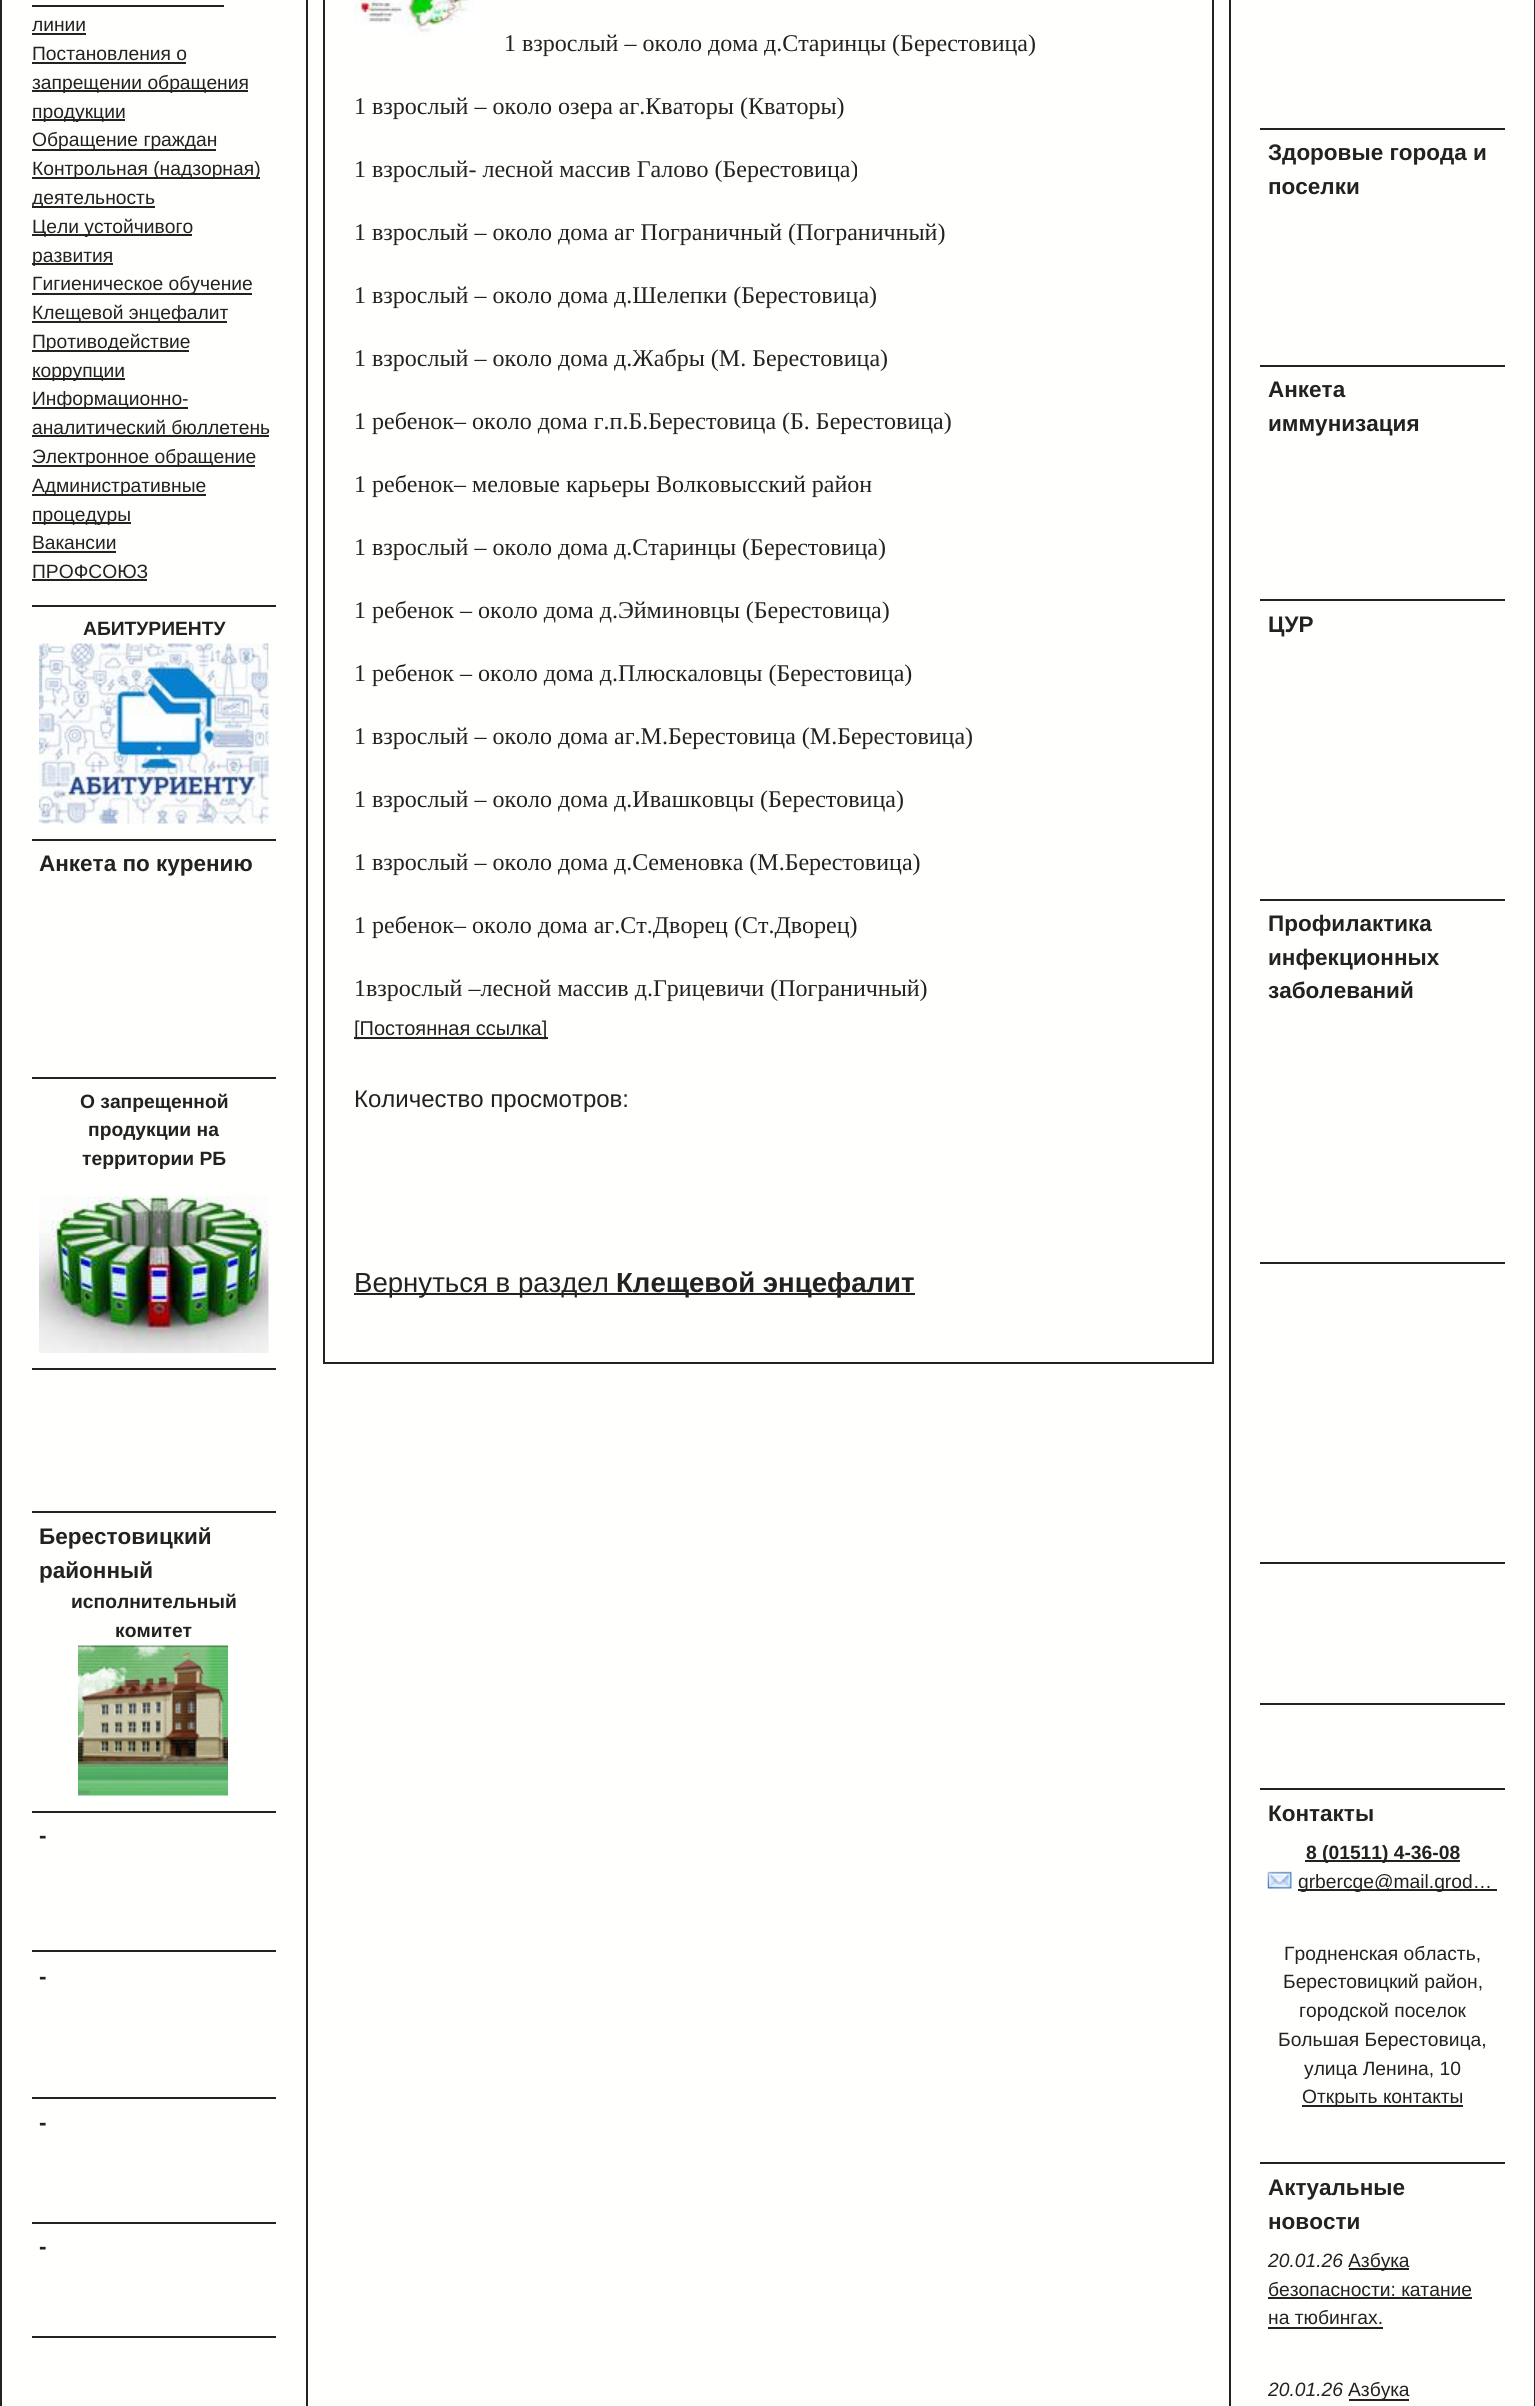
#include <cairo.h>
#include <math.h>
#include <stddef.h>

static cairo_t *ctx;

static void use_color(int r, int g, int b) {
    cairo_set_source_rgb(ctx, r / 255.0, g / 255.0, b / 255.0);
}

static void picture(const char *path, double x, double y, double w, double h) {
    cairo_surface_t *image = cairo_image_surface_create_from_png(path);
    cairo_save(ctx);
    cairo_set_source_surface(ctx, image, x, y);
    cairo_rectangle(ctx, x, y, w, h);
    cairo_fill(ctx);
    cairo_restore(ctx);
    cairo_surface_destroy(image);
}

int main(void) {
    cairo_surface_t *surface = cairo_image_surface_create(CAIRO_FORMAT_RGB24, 1535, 2406);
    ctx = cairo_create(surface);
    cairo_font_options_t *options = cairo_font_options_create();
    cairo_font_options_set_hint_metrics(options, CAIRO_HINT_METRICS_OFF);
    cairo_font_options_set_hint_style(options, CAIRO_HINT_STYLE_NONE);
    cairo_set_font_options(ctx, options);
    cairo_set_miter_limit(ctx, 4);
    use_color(255, 255, 253);
    cairo_paint(ctx);
    cairo_rectangle(ctx, 1, -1, 306, 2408);
    use_color(34, 34, 34);
    cairo_stroke(ctx);
    cairo_select_font_face(ctx, "Liberation Sans", CAIRO_FONT_SLANT_NORMAL, CAIRO_FONT_WEIGHT_NORMAL);
    cairo_set_font_size(ctx, 19.25);
    cairo_move_to(ctx, 32, 31);
    cairo_show_text(ctx, "линии");
    cairo_rectangle(ctx, 32, 5, 192, 2);
    cairo_fill(ctx);
    cairo_rectangle(ctx, 32, 33, 54, 2);
    cairo_fill(ctx);
    cairo_move_to(ctx, 32, 60);
    cairo_show_text(ctx, "Постановления о");
    cairo_rectangle(ctx, 32, 62, 154, 2);
    cairo_fill(ctx);
    cairo_rectangle(ctx, 32, 90, 216, 2);
    cairo_fill(ctx);
    cairo_move_to(ctx, 32, 89);
    cairo_show_text(ctx, "запрещении обращения");
    cairo_rectangle(ctx, 32, 119, 93, 2);
    cairo_fill(ctx);
    cairo_move_to(ctx, 32, 118);
    cairo_show_text(ctx, "продукции");
    cairo_rectangle(ctx, 32, 149, 184, 2);
    cairo_fill(ctx);
    cairo_move_to(ctx, 32, 146);
    cairo_show_text(ctx, "Обращение граждан");
    cairo_rectangle(ctx, 32, 177, 228, 2);
    cairo_fill(ctx);
    cairo_move_to(ctx, 32, 175);
    cairo_show_text(ctx, "Контрольная (надзорная)");
    cairo_rectangle(ctx, 32, 206, 123, 2);
    cairo_fill(ctx);
    cairo_save(ctx);
    cairo_rectangle(ctx, 32, 155, 244, 57);
    cairo_clip(ctx);
    cairo_move_to(ctx, 32, 204);
    cairo_show_text(ctx, "деятельность");
    cairo_restore(ctx);
    cairo_rectangle(ctx, 32, 234, 160, 2);
    cairo_fill(ctx);
    cairo_move_to(ctx, 32, 233);
    cairo_show_text(ctx, "Цели устойчивого");
    cairo_rectangle(ctx, 32, 263, 81, 2);
    cairo_fill(ctx);
    cairo_move_to(ctx, 32, 262);
    cairo_show_text(ctx, "развития");
    cairo_rectangle(ctx, 32, 293, 220, 2);
    cairo_fill(ctx);
    cairo_move_to(ctx, 32, 290);
    cairo_show_text(ctx, "Гигиеническое обучение");
    cairo_rectangle(ctx, 32, 321, 195, 2);
    cairo_fill(ctx);
    cairo_move_to(ctx, 32, 319);
    cairo_show_text(ctx, "Клещевой энцефалит");
    cairo_rectangle(ctx, 32, 350, 157, 2);
    cairo_fill(ctx);
    cairo_move_to(ctx, 32, 348);
    cairo_show_text(ctx, "Противодействие");
    cairo_rectangle(ctx, 32, 378, 93, 2);
    cairo_fill(ctx);
    cairo_move_to(ctx, 32, 377);
    cairo_show_text(ctx, "коррупции");
    cairo_rectangle(ctx, 32, 407, 156, 2);
    cairo_fill(ctx);
    cairo_move_to(ctx, 32, 405);
    cairo_show_text(ctx, "Информационно-");
    cairo_move_to(ctx, 32, 434);
    cairo_show_text(ctx, "аналитический бюллетень");
    cairo_rectangle(ctx, 32, 435, 237, 2);
    cairo_fill(ctx);
    cairo_rectangle(ctx, 32, 465, 223, 2);
    cairo_fill(ctx);
    cairo_move_to(ctx, 32, 463);
    cairo_show_text(ctx, "Электронное обращение");
    cairo_rectangle(ctx, 32, 494, 174, 2);
    cairo_fill(ctx);
    cairo_move_to(ctx, 32, 492);
    cairo_show_text(ctx, "Административные");
    cairo_rectangle(ctx, 32, 522, 99, 2);
    cairo_fill(ctx);
    cairo_move_to(ctx, 32, 521);
    cairo_show_text(ctx, "процедуры");
    cairo_move_to(ctx, 32, 549);
    cairo_show_text(ctx, "Вакансии");
    cairo_rectangle(ctx, 32, 551, 84, 2);
    cairo_fill(ctx);
    cairo_move_to(ctx, 32, 578);
    cairo_show_text(ctx, "ПРОФСОЮЗ");
    cairo_rectangle(ctx, 32, 579, 115, 2);
    cairo_fill(ctx);
    cairo_rectangle(ctx, 32, 605, 244, 2);
    cairo_fill(ctx);
    cairo_select_font_face(ctx, "Liberation Sans", CAIRO_FONT_SLANT_NORMAL, CAIRO_FONT_WEIGHT_BOLD);
    cairo_move_to(ctx, 83, 635);
    cairo_show_text(ctx, "АБИТУРИЕНТУ");
    picture("img1.png", 39, 643, 230, 181);
    cairo_rectangle(ctx, 32, 839, 244, 2);
    cairo_fill(ctx);
    cairo_set_font_size(ctx, 22.5);
    cairo_move_to(ctx, 39, 871);
    cairo_show_text(ctx, "Анкета по курению");
    cairo_rectangle(ctx, 32, 1077, 244, 2);
    cairo_fill(ctx);
    cairo_set_font_size(ctx, 19.25);
    cairo_move_to(ctx, 80, 1108);
    cairo_show_text(ctx, "О запрещенной");
    cairo_move_to(ctx, 88, 1136);
    cairo_show_text(ctx, "продукции на");
    cairo_move_to(ctx, 82, 1165);
    cairo_show_text(ctx, "территории РБ");
    picture("img2.png", 39, 1195, 230, 158);
    cairo_rectangle(ctx, 32, 1368, 244, 2);
    cairo_fill(ctx);
    cairo_rectangle(ctx, 32, 1511, 244, 2);
    cairo_fill(ctx);
    cairo_set_font_size(ctx, 22.5);
    cairo_move_to(ctx, 39, 1544);
    cairo_show_text(ctx, "Берестовицкий");
    cairo_move_to(ctx, 39, 1578);
    cairo_show_text(ctx, "районный");
    cairo_set_font_size(ctx, 19.25);
    cairo_move_to(ctx, 71, 1608);
    cairo_show_text(ctx, "исполнительный");
    cairo_move_to(ctx, 115, 1637);
    cairo_show_text(ctx, "комитет");
    picture("img3.png", 78, 1645, 150, 151);
    cairo_rectangle(ctx, 32, 1811, 244, 2);
    cairo_fill(ctx);
    cairo_set_font_size(ctx, 22.5);
    cairo_move_to(ctx, 39, 1843);
    cairo_show_text(ctx, "-");
    cairo_rectangle(ctx, 32, 1950, 244, 2);
    cairo_fill(ctx);
    cairo_move_to(ctx, 39, 1984);
    cairo_show_text(ctx, "-");
    cairo_rectangle(ctx, 32, 2097, 244, 2);
    cairo_fill(ctx);
    cairo_move_to(ctx, 39, 2130);
    cairo_show_text(ctx, "-");
    cairo_rectangle(ctx, 32, 2222, 244, 2);
    cairo_fill(ctx);
    cairo_move_to(ctx, 39, 2254);
    cairo_show_text(ctx, "-");
    cairo_rectangle(ctx, 32, 2336, 244, 2);
    cairo_fill(ctx);
    cairo_rectangle(ctx, 324, -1, 889, 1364);
    cairo_stroke(ctx);
    picture("img4.png", 354, 0, 120, 36);
    cairo_select_font_face(ctx, "Liberation Serif", CAIRO_FONT_SLANT_NORMAL, CAIRO_FONT_WEIGHT_NORMAL);
    cairo_set_font_size(ctx, 24);
    cairo_move_to(ctx, 504, 51);
    cairo_show_text(ctx, "1 взрослый – около дома д.Старинцы (Берестовица)");
    cairo_move_to(ctx, 354, 114);
    cairo_show_text(ctx, "1 взрослый – около озера аг.Кваторы (Кваторы)");
    cairo_move_to(ctx, 354, 177);
    cairo_show_text(ctx, "1 взрослый- лесной массив Галово (Берестовица)");
    cairo_move_to(ctx, 354, 240);
    cairo_show_text(ctx, "1 взрослый – около дома аг Пограничный (Пограничный)");
    cairo_move_to(ctx, 354, 303);
    cairo_show_text(ctx, "1 взрослый – около дома д.Шелепки (Берестовица)");
    cairo_move_to(ctx, 354, 366);
    cairo_show_text(ctx, "1 взрослый – около дома д.Жабры (М. Берестовица)");
    cairo_move_to(ctx, 354, 429);
    cairo_show_text(ctx, "1 ребенок– около дома г.п.Б.Берестовица (Б. Берестовица)");
    cairo_move_to(ctx, 354, 492);
    cairo_show_text(ctx, "1 ребенок– меловые карьеры Волковысский район");
    cairo_move_to(ctx, 354, 555);
    cairo_show_text(ctx, "1 взрослый – около дома д.Старинцы (Берестовица)");
    cairo_move_to(ctx, 354, 618);
    cairo_show_text(ctx, "1 ребенок – около дома д.Эйминовцы (Берестовица)");
    cairo_move_to(ctx, 354, 681);
    cairo_show_text(ctx, "1 ребенок – около дома д.Плюскаловцы (Берестовица)");
    cairo_move_to(ctx, 354, 744);
    cairo_show_text(ctx, "1 взрослый – около дома аг.М.Берестовица (М.Берестовица)");
    cairo_move_to(ctx, 354, 807);
    cairo_show_text(ctx, "1 взрослый – около дома д.Ивашковцы (Берестовица)");
    cairo_move_to(ctx, 354, 870);
    cairo_show_text(ctx, "1 взрослый – около дома д.Семеновка (М.Берестовица)");
    cairo_move_to(ctx, 354, 933);
    cairo_show_text(ctx, "1 ребенок– около дома аг.Ст.Дворец (Ст.Дворец)");
    cairo_move_to(ctx, 354, 996);
    cairo_show_text(ctx, "1взрослый –лесной массив д.Грицевичи (Пограничный)");
    cairo_rectangle(ctx, 354, 1037, 194, 2);
    cairo_fill(ctx);
    cairo_select_font_face(ctx, "Liberation Sans", CAIRO_FONT_SLANT_NORMAL, CAIRO_FONT_WEIGHT_NORMAL);
    cairo_set_font_size(ctx, 20);
    cairo_move_to(ctx, 354, 1035);
    cairo_show_text(ctx, "[Постоянная ссылка]");
    cairo_set_font_size(ctx, 24);
    cairo_move_to(ctx, 354, 1107);
    cairo_show_text(ctx, "Количество просмотров:");
    cairo_rectangle(ctx, 354, 1293, 561, 2);
    cairo_fill(ctx);
    cairo_set_font_size(ctx, 27.6);
    cairo_move_to(ctx, 354, 1292);
    cairo_show_text(ctx, "Вернуться в раздел");
    cairo_select_font_face(ctx, "Liberation Sans", CAIRO_FONT_SLANT_NORMAL, CAIRO_FONT_WEIGHT_BOLD);
    cairo_move_to(ctx, 616, 1292);
    cairo_show_text(ctx, "Клещевой энцефалит");
    cairo_rectangle(ctx, 1230, -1, 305, 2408);
    cairo_stroke(ctx);
    cairo_rectangle(ctx, 1260, 128, 245, 2);
    cairo_fill(ctx);
    cairo_set_font_size(ctx, 22.5);
    cairo_move_to(ctx, 1268, 160);
    cairo_show_text(ctx, "Здоровые города и");
    cairo_move_to(ctx, 1268, 194);
    cairo_show_text(ctx, "поселки");
    cairo_rectangle(ctx, 1260, 365, 245, 2);
    cairo_fill(ctx);
    cairo_move_to(ctx, 1268, 397);
    cairo_show_text(ctx, "Анкета");
    cairo_move_to(ctx, 1268, 431);
    cairo_show_text(ctx, "иммунизация");
    cairo_rectangle(ctx, 1260, 599, 245, 2);
    cairo_fill(ctx);
    cairo_move_to(ctx, 1268, 632);
    cairo_show_text(ctx, "ЦУР");
    cairo_rectangle(ctx, 1260, 899, 245, 2);
    cairo_fill(ctx);
    cairo_move_to(ctx, 1268, 931);
    cairo_show_text(ctx, "Профилактика");
    cairo_move_to(ctx, 1268, 965);
    cairo_show_text(ctx, "инфекционных");
    cairo_move_to(ctx, 1268, 998);
    cairo_show_text(ctx, "заболеваний");
    cairo_rectangle(ctx, 1260, 1262, 245, 2);
    cairo_fill(ctx);
    cairo_rectangle(ctx, 1260, 1562, 245, 2);
    cairo_fill(ctx);
    cairo_rectangle(ctx, 1260, 1703, 245, 2);
    cairo_fill(ctx);
    cairo_rectangle(ctx, 1260, 1788, 245, 2);
    cairo_fill(ctx);
    cairo_move_to(ctx, 1268, 1821);
    cairo_show_text(ctx, "Контакты");
    cairo_rectangle(ctx, 1305, 1860, 155, 2);
    cairo_fill(ctx);
    cairo_set_font_size(ctx, 19.25);
    cairo_move_to(ctx, 1306, 1859);
    cairo_show_text(ctx, "8 (01511) 4-36-08");
    picture("img5.png", 1267, 1871, 25, 18);
    cairo_rectangle(ctx, 1298, 1889, 199, 2);
    cairo_fill(ctx);
    cairo_select_font_face(ctx, "Liberation Sans", CAIRO_FONT_SLANT_NORMAL, CAIRO_FONT_WEIGHT_NORMAL);
    cairo_move_to(ctx, 1298, 1888);
    cairo_show_text(ctx, "grbercge@mail.grod…");
    cairo_move_to(ctx, 1284, 1960);
    cairo_show_text(ctx, "Гродненская область,");
    cairo_move_to(ctx, 1283, 1988);
    cairo_show_text(ctx, "Берестовицкий район,");
    cairo_move_to(ctx, 1299, 2017);
    cairo_show_text(ctx, "городской поселок");
    cairo_move_to(ctx, 1278, 2046);
    cairo_show_text(ctx, "Большая Берестовица,");
    cairo_move_to(ctx, 1304, 2075);
    cairo_show_text(ctx, "улица Ленина, 10");
    cairo_rectangle(ctx, 1302, 2105, 161, 2);
    cairo_fill(ctx);
    cairo_move_to(ctx, 1302, 2103);
    cairo_show_text(ctx, "Открыть контакты");
    cairo_rectangle(ctx, 1260, 2162, 245, 2);
    cairo_fill(ctx);
    cairo_select_font_face(ctx, "Liberation Sans", CAIRO_FONT_SLANT_NORMAL, CAIRO_FONT_WEIGHT_BOLD);
    cairo_set_font_size(ctx, 22.5);
    cairo_move_to(ctx, 1268, 2195);
    cairo_show_text(ctx, "Актуальные");
    cairo_move_to(ctx, 1268, 2229);
    cairo_show_text(ctx, "новости");
    cairo_select_font_face(ctx, "Liberation Sans", CAIRO_FONT_SLANT_ITALIC, CAIRO_FONT_WEIGHT_NORMAL);
    cairo_set_font_size(ctx, 19.25);
    cairo_move_to(ctx, 1268, 2267);
    cairo_show_text(ctx, "20.01.26");
    cairo_rectangle(ctx, 1349, 2268, 60, 2);
    cairo_fill(ctx);
    cairo_select_font_face(ctx, "Liberation Sans", CAIRO_FONT_SLANT_NORMAL, CAIRO_FONT_WEIGHT_NORMAL);
    cairo_move_to(ctx, 1348, 2267);
    cairo_show_text(ctx, "Азбука");
    cairo_move_to(ctx, 1268, 2296);
    cairo_show_text(ctx, "безопасности: катание");
    cairo_rectangle(ctx, 1268, 2297, 204, 2);
    cairo_fill(ctx);
    cairo_move_to(ctx, 1268, 2324);
    cairo_show_text(ctx, "на тюбингах.");
    cairo_rectangle(ctx, 1268, 2327, 115, 2);
    cairo_fill(ctx);
    cairo_select_font_face(ctx, "Liberation Sans", CAIRO_FONT_SLANT_ITALIC, CAIRO_FONT_WEIGHT_NORMAL);
    cairo_move_to(ctx, 1268, 2396);
    cairo_show_text(ctx, "20.01.26");
    cairo_rectangle(ctx, 1349, 2399, 60, 2);
    cairo_fill(ctx);
    cairo_select_font_face(ctx, "Liberation Sans", CAIRO_FONT_SLANT_NORMAL, CAIRO_FONT_WEIGHT_NORMAL);
    cairo_move_to(ctx, 1348, 2396);
    cairo_show_text(ctx, "Азбука");
    cairo_surface_write_to_png(surface, "result.png");
    cairo_font_options_destroy(options);
    cairo_destroy(ctx);
    cairo_surface_destroy(surface);
    return 0;
}
